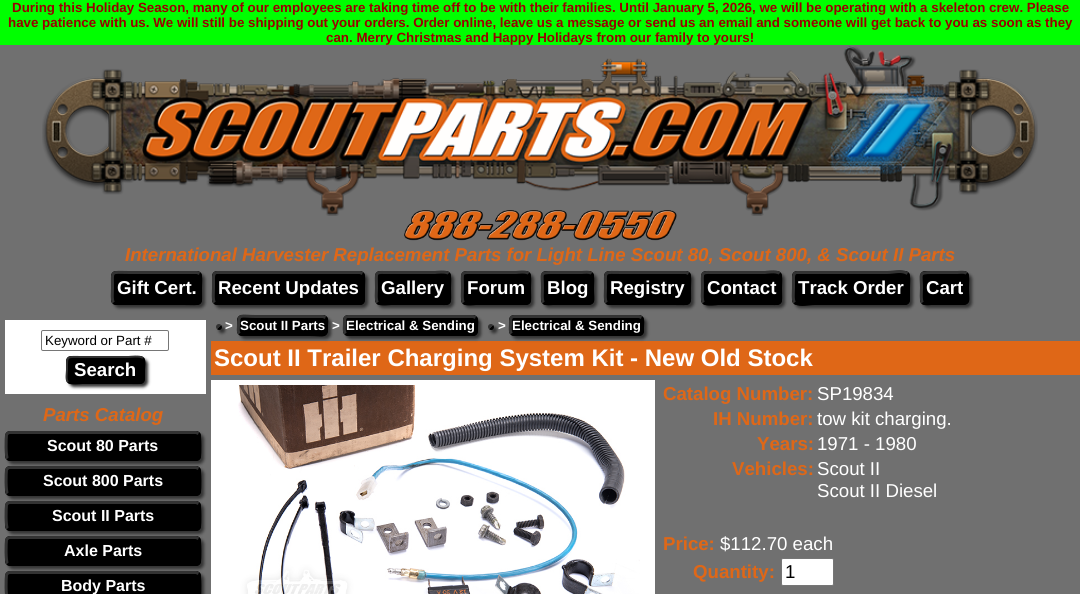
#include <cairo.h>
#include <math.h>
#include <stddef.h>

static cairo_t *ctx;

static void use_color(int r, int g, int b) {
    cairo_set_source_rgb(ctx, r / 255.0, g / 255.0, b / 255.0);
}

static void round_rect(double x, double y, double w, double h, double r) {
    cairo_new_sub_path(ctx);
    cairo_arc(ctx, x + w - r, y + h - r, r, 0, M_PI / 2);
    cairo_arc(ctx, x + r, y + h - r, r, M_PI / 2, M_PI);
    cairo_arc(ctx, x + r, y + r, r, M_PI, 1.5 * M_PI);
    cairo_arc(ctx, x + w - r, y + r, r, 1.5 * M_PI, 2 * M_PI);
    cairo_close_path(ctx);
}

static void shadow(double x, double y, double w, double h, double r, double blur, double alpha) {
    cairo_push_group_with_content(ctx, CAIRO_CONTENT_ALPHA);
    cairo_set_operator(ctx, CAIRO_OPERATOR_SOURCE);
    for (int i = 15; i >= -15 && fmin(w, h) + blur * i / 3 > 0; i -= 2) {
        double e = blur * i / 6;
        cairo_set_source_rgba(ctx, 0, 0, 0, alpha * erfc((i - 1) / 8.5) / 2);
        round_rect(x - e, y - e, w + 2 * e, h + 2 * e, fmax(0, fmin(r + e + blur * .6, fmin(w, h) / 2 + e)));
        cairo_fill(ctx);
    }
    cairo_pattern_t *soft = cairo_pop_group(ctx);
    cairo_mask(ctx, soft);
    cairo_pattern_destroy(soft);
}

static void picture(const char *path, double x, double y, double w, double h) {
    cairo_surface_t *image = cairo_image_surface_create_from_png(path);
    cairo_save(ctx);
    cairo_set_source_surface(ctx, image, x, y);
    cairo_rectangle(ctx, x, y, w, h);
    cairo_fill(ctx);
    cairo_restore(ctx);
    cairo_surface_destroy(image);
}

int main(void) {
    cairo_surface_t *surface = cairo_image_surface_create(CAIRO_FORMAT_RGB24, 1080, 594);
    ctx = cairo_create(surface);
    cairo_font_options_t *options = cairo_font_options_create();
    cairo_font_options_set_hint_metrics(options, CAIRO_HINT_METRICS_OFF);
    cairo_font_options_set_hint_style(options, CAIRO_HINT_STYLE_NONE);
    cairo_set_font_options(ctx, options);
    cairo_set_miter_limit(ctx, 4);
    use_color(112, 112, 112);
    cairo_paint(ctx);
    use_color(0, 255, 0);
    cairo_rectangle(ctx, 0, 0, 1080, 45);
    cairo_fill(ctx);
    cairo_select_font_face(ctx, "Liberation Sans", CAIRO_FONT_SLANT_NORMAL, CAIRO_FONT_WEIGHT_BOLD);
    cairo_set_font_size(ctx, 13.33);
    use_color(153, 0, 0);
    cairo_move_to(ctx, 12, 12);
    cairo_show_text(ctx, "During this Holiday Season, many of our employees are taking time off to be with their families. Until January 5, 2026, we will be operating with a skeleton crew. Please");
    cairo_move_to(ctx, 8, 27);
    cairo_show_text(ctx, "have patience with us. We will still be shipping out your orders. Order online, leave us a message or send us an email and someone will get back to you as soon as they");
    cairo_move_to(ctx, 326, 42);
    cairo_show_text(ctx, "can. Merry Christmas and Happy Holidays from our family to yours!");
    picture("img1.png", 42, 46, 996, 170);
    picture("img2.png", 404, 210, 273, 31);
    cairo_select_font_face(ctx, "Liberation Sans", CAIRO_FONT_SLANT_ITALIC, CAIRO_FONT_WEIGHT_BOLD);
    cairo_set_font_size(ctx, 18.65);
    use_color(223, 103, 23);
    cairo_move_to(ctx, 125, 261);
    cairo_show_text(ctx, "International Harvester Replacement Parts for Light Line Scout 80, Scout 800, & Scout II Parts");
    use_color(51, 51, 51);
    shadow(114, 274, 91, 34, 5, 1.5, 1);
    use_color(0, 0, 0);
    round_rect(111, 271, 91, 34, 5);
    cairo_fill(ctx);
    cairo_new_path(ctx);
    cairo_move_to(ctx, 199.5, 273.5);
    cairo_curve_to(ctx, 201.5, 276, 200.5, 285, 200.5, 288);
    cairo_curve_to(ctx, 200.5, 306.5, 203, 303.5, 183.5, 303.5);
    cairo_line_to(ctx, 116, 303.5);
    cairo_line_to(ctx, 113.5, 302.5);
    cairo_set_line_width(ctx, 3);
    cairo_stroke(ctx);
    cairo_new_path(ctx);
    cairo_move_to(ctx, 113.5, 302.5);
    cairo_curve_to(ctx, 111.5, 300, 112.5, 291, 112.5, 288);
    cairo_curve_to(ctx, 112.5, 269.5, 110, 272.5, 129.5, 272.5);
    cairo_line_to(ctx, 197, 272.5);
    cairo_line_to(ctx, 199.5, 273.5);
    use_color(51, 51, 51);
    cairo_stroke(ctx);
    cairo_select_font_face(ctx, "Liberation Sans", CAIRO_FONT_SLANT_NORMAL, CAIRO_FONT_WEIGHT_BOLD);
    use_color(255, 255, 255);
    cairo_move_to(ctx, 117, 294);
    cairo_show_text(ctx, "Gift Cert.");
    use_color(51, 51, 51);
    shadow(215, 274, 153, 34, 5, 1.5, 1);
    use_color(0, 0, 0);
    round_rect(212, 271, 153, 34, 5);
    cairo_fill(ctx);
    cairo_new_path(ctx);
    cairo_move_to(ctx, 362.5, 273.5);
    cairo_curve_to(ctx, 364.5, 276, 363.5, 285, 363.5, 288);
    cairo_line_to(ctx, 363.5, 296);
    cairo_curve_to(ctx, 363.5, 298.5, 364, 303.5, 360, 303.5);
    cairo_line_to(ctx, 217, 303.5);
    cairo_line_to(ctx, 214.5, 302.5);
    cairo_stroke(ctx);
    cairo_new_path(ctx);
    cairo_move_to(ctx, 214.5, 302.5);
    cairo_curve_to(ctx, 212.5, 300, 213.5, 291, 213.5, 288);
    cairo_line_to(ctx, 213.5, 280);
    cairo_curve_to(ctx, 213.5, 277.5, 213, 272.5, 217, 272.5);
    cairo_line_to(ctx, 360, 272.5);
    cairo_line_to(ctx, 362.5, 273.5);
    use_color(51, 51, 51);
    cairo_stroke(ctx);
    use_color(255, 255, 255);
    cairo_move_to(ctx, 218, 294);
    cairo_show_text(ctx, "Recent Updates");
    use_color(51, 51, 51);
    shadow(378, 274, 76, 34, 5, 1.5, 1);
    use_color(0, 0, 0);
    round_rect(375, 271, 76, 34, 5);
    cairo_fill(ctx);
    cairo_new_path(ctx);
    cairo_move_to(ctx, 448.5, 273.5);
    cairo_curve_to(ctx, 450.5, 276, 449.5, 285, 449.5, 288);
    cairo_curve_to(ctx, 449.5, 305.5, 452.5, 303.5, 435, 303.5);
    cairo_line_to(ctx, 391, 303.5);
    cairo_curve_to(ctx, 390.5, 303.5, 380, 305, 377.5, 302.5);
    cairo_stroke(ctx);
    cairo_new_path(ctx);
    cairo_move_to(ctx, 377.5, 302.5);
    cairo_curve_to(ctx, 375.5, 300, 376.5, 291, 376.5, 288);
    cairo_curve_to(ctx, 376.5, 270.5, 373.5, 272.5, 391, 272.5);
    cairo_line_to(ctx, 435, 272.5);
    cairo_curve_to(ctx, 435.5, 272.5, 446, 271, 448.5, 273.5);
    use_color(51, 51, 51);
    cairo_stroke(ctx);
    use_color(255, 255, 255);
    cairo_move_to(ctx, 381, 294);
    cairo_show_text(ctx, "Gallery");
    use_color(51, 51, 51);
    shadow(464, 274, 70, 34, 5, 1.5, 1);
    use_color(0, 0, 0);
    round_rect(461, 271, 70, 34, 5);
    cairo_fill(ctx);
    cairo_new_path(ctx);
    cairo_move_to(ctx, 528.5, 273.5);
    cairo_curve_to(ctx, 530.5, 276, 529.5, 285, 529.5, 288);
    cairo_curve_to(ctx, 529.5, 305, 532.5, 303.5, 516, 303.5);
    cairo_line_to(ctx, 476, 303.5);
    cairo_curve_to(ctx, 474.5, 303.5, 466, 305, 463.5, 302.5);
    cairo_stroke(ctx);
    cairo_new_path(ctx);
    cairo_move_to(ctx, 463.5, 302.5);
    cairo_curve_to(ctx, 461.5, 300, 462.5, 291, 462.5, 288);
    cairo_curve_to(ctx, 462.5, 271, 459.5, 272.5, 476, 272.5);
    cairo_line_to(ctx, 516, 272.5);
    cairo_curve_to(ctx, 517.5, 272.5, 526, 271, 528.5, 273.5);
    use_color(51, 51, 51);
    cairo_stroke(ctx);
    use_color(255, 255, 255);
    cairo_move_to(ctx, 467, 294);
    cairo_show_text(ctx, "Forum");
    use_color(51, 51, 51);
    shadow(544, 274, 53, 34, 5, 1.5, 1);
    use_color(0, 0, 0);
    round_rect(541, 271, 53, 34, 5);
    cairo_fill(ctx);
    cairo_new_path(ctx);
    cairo_move_to(ctx, 591.5, 273.5);
    cairo_curve_to(ctx, 593.5, 276, 592.5, 285, 592.5, 288);
    cairo_curve_to(ctx, 592.5, 303, 596, 303.5, 582, 303.5);
    cairo_line_to(ctx, 553, 303.5);
    cairo_curve_to(ctx, 552, 303.5, 545.5, 304.5, 543.5, 302.5);
    cairo_stroke(ctx);
    cairo_new_path(ctx);
    cairo_move_to(ctx, 543.5, 302.5);
    cairo_curve_to(ctx, 541.5, 300, 542.5, 291, 542.5, 288);
    cairo_curve_to(ctx, 542.5, 273, 539, 272.5, 553, 272.5);
    cairo_line_to(ctx, 582, 272.5);
    cairo_curve_to(ctx, 583, 272.5, 589.5, 271.5, 591.5, 273.5);
    use_color(51, 51, 51);
    cairo_stroke(ctx);
    use_color(255, 255, 255);
    cairo_move_to(ctx, 547, 294);
    cairo_show_text(ctx, "Blog");
    use_color(51, 51, 51);
    shadow(607, 274, 87, 34, 5, 1.5, 1);
    use_color(0, 0, 0);
    round_rect(604, 271, 87, 34, 5);
    cairo_fill(ctx);
    cairo_new_path(ctx);
    cairo_move_to(ctx, 688.5, 273.5);
    cairo_curve_to(ctx, 690.5, 276, 689.5, 285, 689.5, 288);
    cairo_curve_to(ctx, 689.5, 306, 692, 303.5, 673, 303.5);
    cairo_line_to(ctx, 609, 303.5);
    cairo_line_to(ctx, 606.5, 302.5);
    cairo_stroke(ctx);
    cairo_new_path(ctx);
    cairo_move_to(ctx, 606.5, 302.5);
    cairo_curve_to(ctx, 604.5, 300, 605.5, 291, 605.5, 288);
    cairo_curve_to(ctx, 605.5, 270, 603, 272.5, 622, 272.5);
    cairo_line_to(ctx, 686, 272.5);
    cairo_line_to(ctx, 688.5, 273.5);
    use_color(51, 51, 51);
    cairo_stroke(ctx);
    use_color(255, 255, 255);
    cairo_move_to(ctx, 610, 294);
    cairo_show_text(ctx, "Registry");
    use_color(51, 51, 51);
    shadow(704, 274, 81, 34, 5, 1.5, 1);
    use_color(0, 0, 0);
    round_rect(701, 271, 81, 34, 5);
    cairo_fill(ctx);
    cairo_new_path(ctx);
    cairo_move_to(ctx, 779.5, 273.5);
    cairo_curve_to(ctx, 781.5, 276, 780.5, 285, 780.5, 288);
    cairo_curve_to(ctx, 780.5, 305.5, 783.5, 303.5, 765, 303.5);
    cairo_line_to(ctx, 718, 303.5);
    cairo_curve_to(ctx, 717.5, 303.5, 706.5, 305.5, 703.5, 302.5);
    cairo_stroke(ctx);
    cairo_new_path(ctx);
    cairo_move_to(ctx, 703.5, 302.5);
    cairo_curve_to(ctx, 701.5, 300, 702.5, 291, 702.5, 288);
    cairo_curve_to(ctx, 702.5, 270.5, 699.5, 272.5, 718, 272.5);
    cairo_line_to(ctx, 765, 272.5);
    cairo_curve_to(ctx, 765.5, 272.5, 776.5, 270.5, 779.5, 273.5);
    use_color(51, 51, 51);
    cairo_stroke(ctx);
    use_color(255, 255, 255);
    cairo_move_to(ctx, 707, 294);
    cairo_show_text(ctx, "Contact");
    use_color(51, 51, 51);
    shadow(795, 274, 118, 34, 5, 1.5, 1);
    use_color(0, 0, 0);
    round_rect(792, 271, 118, 34, 5);
    cairo_fill(ctx);
    cairo_new_path(ctx);
    cairo_move_to(ctx, 907.5, 273.5);
    cairo_curve_to(ctx, 909.5, 276, 908.5, 285, 908.5, 288);
    cairo_line_to(ctx, 908.5, 296);
    cairo_curve_to(ctx, 908.5, 298.5, 909, 303.5, 905, 303.5);
    cairo_line_to(ctx, 815, 303.5);
    cairo_curve_to(ctx, 808.5, 303.5, 801, 306, 795.5, 303);
    cairo_line_to(ctx, 794.5, 302.5);
    cairo_stroke(ctx);
    cairo_new_path(ctx);
    cairo_move_to(ctx, 794.5, 302.5);
    cairo_curve_to(ctx, 792.5, 300, 793.5, 291, 793.5, 288);
    cairo_line_to(ctx, 793.5, 280);
    cairo_curve_to(ctx, 793.5, 277.5, 793, 272.5, 797, 272.5);
    cairo_line_to(ctx, 887, 272.5);
    cairo_curve_to(ctx, 893.5, 272.5, 901, 270, 906.5, 273);
    cairo_line_to(ctx, 907.5, 273.5);
    use_color(51, 51, 51);
    cairo_stroke(ctx);
    use_color(255, 255, 255);
    cairo_move_to(ctx, 798, 294);
    cairo_show_text(ctx, "Track Order");
    use_color(51, 51, 51);
    shadow(923, 274, 49, 34, 5, 1.5, 1);
    use_color(0, 0, 0);
    round_rect(920, 271, 49, 34, 5);
    cairo_fill(ctx);
    cairo_new_path(ctx);
    cairo_move_to(ctx, 966.5, 273.5);
    cairo_curve_to(ctx, 968.5, 276, 967.5, 285, 967.5, 288);
    cairo_curve_to(ctx, 967.5, 302, 971, 303.5, 957.5, 303.5);
    cairo_line_to(ctx, 931.5, 303.5);
    cairo_curve_to(ctx, 930, 303.5, 924.5, 304.5, 922.5, 302.5);
    cairo_stroke(ctx);
    cairo_new_path(ctx);
    cairo_move_to(ctx, 922.5, 302.5);
    cairo_curve_to(ctx, 920.5, 300, 921.5, 291, 921.5, 288);
    cairo_curve_to(ctx, 921.5, 274, 918, 272.5, 931.5, 272.5);
    cairo_line_to(ctx, 957.5, 272.5);
    cairo_curve_to(ctx, 959, 272.5, 964.5, 271.5, 966.5, 273.5);
    use_color(51, 51, 51);
    cairo_stroke(ctx);
    use_color(255, 255, 255);
    cairo_move_to(ctx, 926, 294);
    cairo_show_text(ctx, "Cart");
    cairo_rectangle(ctx, 5, 320, 201, 74);
    cairo_fill(ctx);
    round_rect(41.5, 330.5, 127, 20, 1.5);
    use_color(118, 118, 118);
    cairo_set_line_width(ctx, 1);
    cairo_stroke(ctx);
    cairo_select_font_face(ctx, "Liberation Sans", CAIRO_FONT_SLANT_NORMAL, CAIRO_FONT_WEIGHT_NORMAL);
    cairo_set_font_size(ctx, 13.33);
    use_color(0, 0, 0);
    cairo_move_to(ctx, 45, 345);
    cairo_show_text(ctx, "Keyword or Part #");
    use_color(51, 51, 51);
    shadow(69, 359, 79, 28, 5, 1.5, 1);
    use_color(0, 0, 0);
    round_rect(66, 356, 79, 28, 5);
    cairo_fill(ctx);
    cairo_new_path(ctx);
    cairo_move_to(ctx, 143, 358);
    cairo_curve_to(ctx, 145.5, 360.5, 144, 367, 144, 370);
    cairo_curve_to(ctx, 144, 385, 145, 383, 128.5, 383);
    cairo_line_to(ctx, 82.5, 383);
    cairo_curve_to(ctx, 81, 383, 71, 384.5, 68, 382);
    cairo_set_line_width(ctx, 2);
    cairo_stroke(ctx);
    cairo_new_path(ctx);
    cairo_move_to(ctx, 68, 382);
    cairo_curve_to(ctx, 65.5, 379.5, 67, 373, 67, 370);
    cairo_curve_to(ctx, 67, 355, 66, 357, 82.5, 357);
    cairo_line_to(ctx, 128.5, 357);
    cairo_curve_to(ctx, 130, 357, 140, 355.5, 143, 358);
    use_color(51, 51, 51);
    cairo_stroke(ctx);
    cairo_select_font_face(ctx, "Liberation Sans", CAIRO_FONT_SLANT_NORMAL, CAIRO_FONT_WEIGHT_BOLD);
    cairo_set_font_size(ctx, 18.65);
    use_color(255, 255, 255);
    cairo_move_to(ctx, 74, 376);
    cairo_show_text(ctx, "Search");
    cairo_select_font_face(ctx, "Liberation Sans", CAIRO_FONT_SLANT_ITALIC, CAIRO_FONT_WEIGHT_BOLD);
    use_color(223, 103, 23);
    cairo_move_to(ctx, 43, 421);
    cairo_show_text(ctx, "Parts Catalog");
    use_color(51, 51, 51);
    shadow(8, 434, 196, 30, 5, 1.5, 1);
    use_color(0, 0, 0);
    round_rect(5, 431, 196, 30, 5);
    cairo_fill(ctx);
    cairo_new_path(ctx);
    cairo_move_to(ctx, 198.5, 433.5);
    cairo_curve_to(ctx, 200.5, 435.5, 200, 455, 199.5, 457);
    cairo_curve_to(ctx, 199, 458.5, 197.5, 459.5, 196, 459.5);
    cairo_line_to(ctx, 10, 459.5);
    cairo_line_to(ctx, 7.5, 458.5);
    cairo_set_line_width(ctx, 3);
    cairo_stroke(ctx);
    cairo_new_path(ctx);
    cairo_move_to(ctx, 7.5, 458.5);
    cairo_curve_to(ctx, 5.5, 456.5, 6, 437, 6.5, 435);
    cairo_curve_to(ctx, 7, 433.5, 8.5, 432.5, 10, 432.5);
    cairo_line_to(ctx, 196, 432.5);
    cairo_line_to(ctx, 198.5, 433.5);
    use_color(51, 51, 51);
    cairo_stroke(ctx);
    cairo_select_font_face(ctx, "Liberation Sans", CAIRO_FONT_SLANT_NORMAL, CAIRO_FONT_WEIGHT_BOLD);
    cairo_set_font_size(ctx, 16);
    use_color(255, 255, 255);
    cairo_move_to(ctx, 47, 451);
    cairo_show_text(ctx, "Scout 80 Parts");
    use_color(51, 51, 51);
    shadow(8, 469, 196, 30, 5, 1.5, 1);
    use_color(0, 0, 0);
    round_rect(5, 466, 196, 30, 5);
    cairo_fill(ctx);
    cairo_new_path(ctx);
    cairo_move_to(ctx, 198.5, 468.5);
    cairo_curve_to(ctx, 200.5, 470.5, 200, 490, 199.5, 492);
    cairo_curve_to(ctx, 199, 493.5, 197.5, 494.5, 196, 494.5);
    cairo_line_to(ctx, 10, 494.5);
    cairo_line_to(ctx, 7.5, 493.5);
    cairo_stroke(ctx);
    cairo_new_path(ctx);
    cairo_move_to(ctx, 7.5, 493.5);
    cairo_curve_to(ctx, 5.5, 491.5, 6, 472, 6.5, 470);
    cairo_curve_to(ctx, 7, 468.5, 8.5, 467.5, 10, 467.5);
    cairo_line_to(ctx, 196, 467.5);
    cairo_line_to(ctx, 198.5, 468.5);
    use_color(51, 51, 51);
    cairo_stroke(ctx);
    use_color(255, 255, 255);
    cairo_move_to(ctx, 43, 486);
    cairo_show_text(ctx, "Scout 800 Parts");
    use_color(51, 51, 51);
    shadow(8, 504, 196, 30, 5, 1.5, 1);
    use_color(0, 0, 0);
    round_rect(5, 501, 196, 30, 5);
    cairo_fill(ctx);
    cairo_new_path(ctx);
    cairo_move_to(ctx, 198.5, 503.5);
    cairo_curve_to(ctx, 200.5, 505.5, 200, 525, 199.5, 527);
    cairo_curve_to(ctx, 199, 528.5, 197.5, 529.5, 196, 529.5);
    cairo_line_to(ctx, 10, 529.5);
    cairo_line_to(ctx, 7.5, 528.5);
    cairo_stroke(ctx);
    cairo_new_path(ctx);
    cairo_move_to(ctx, 7.5, 528.5);
    cairo_curve_to(ctx, 5.5, 526.5, 6, 507, 6.5, 505);
    cairo_curve_to(ctx, 7, 503.5, 8.5, 502.5, 10, 502.5);
    cairo_line_to(ctx, 196, 502.5);
    cairo_line_to(ctx, 198.5, 503.5);
    use_color(51, 51, 51);
    cairo_stroke(ctx);
    use_color(255, 255, 255);
    cairo_move_to(ctx, 52, 521);
    cairo_show_text(ctx, "Scout II Parts");
    use_color(51, 51, 51);
    shadow(8, 539, 196, 30, 5, 1.5, 1);
    use_color(0, 0, 0);
    round_rect(5, 536, 196, 30, 5);
    cairo_fill(ctx);
    cairo_new_path(ctx);
    cairo_move_to(ctx, 198.5, 538.5);
    cairo_curve_to(ctx, 200.5, 540.5, 200, 560, 199.5, 562);
    cairo_curve_to(ctx, 199, 563.5, 197.5, 564.5, 196, 564.5);
    cairo_line_to(ctx, 10, 564.5);
    cairo_line_to(ctx, 7.5, 563.5);
    cairo_stroke(ctx);
    cairo_new_path(ctx);
    cairo_move_to(ctx, 7.5, 563.5);
    cairo_curve_to(ctx, 5.5, 561.5, 6, 542, 6.5, 540);
    cairo_curve_to(ctx, 7, 538.5, 8.5, 537.5, 10, 537.5);
    cairo_line_to(ctx, 196, 537.5);
    cairo_line_to(ctx, 198.5, 538.5);
    use_color(51, 51, 51);
    cairo_stroke(ctx);
    use_color(255, 255, 255);
    cairo_move_to(ctx, 64, 556);
    cairo_show_text(ctx, "Axle Parts");
    use_color(51, 51, 51);
    shadow(8, 574, 196, 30, 5, 1.5, 1);
    use_color(0, 0, 0);
    round_rect(5, 571, 196, 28, 5);
    cairo_fill(ctx);
    cairo_new_path(ctx);
    cairo_move_to(ctx, 198.5, 573.5);
    cairo_curve_to(ctx, 200.5, 575.5, 200, 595, 199.5, 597);
    cairo_curve_to(ctx, 199, 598.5, 197.5, 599.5, 196, 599.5);
    cairo_line_to(ctx, 10, 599.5);
    cairo_line_to(ctx, 7.5, 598.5);
    cairo_stroke(ctx);
    cairo_new_path(ctx);
    cairo_move_to(ctx, 7.5, 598.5);
    cairo_curve_to(ctx, 5.5, 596.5, 6, 577, 6.5, 575);
    cairo_curve_to(ctx, 7, 573.5, 8.5, 572.5, 10, 572.5);
    cairo_line_to(ctx, 196, 572.5);
    cairo_line_to(ctx, 198.5, 573.5);
    use_color(51, 51, 51);
    cairo_stroke(ctx);
    use_color(255, 255, 255);
    cairo_move_to(ctx, 61, 591);
    cairo_show_text(ctx, "Body Parts");
    use_color(51, 51, 51);
    shadow(219, 327, 6, 6, 3, 1.5, 1);
    cairo_new_path(ctx);
    cairo_move_to(ctx, 220, 326);
    cairo_curve_to(ctx, 221.5, 327.5, 219.5, 329.5, 218, 328);
    use_color(0, 0, 0);
    cairo_stroke(ctx);
    cairo_new_path(ctx);
    cairo_move_to(ctx, 218, 328);
    cairo_curve_to(ctx, 216.5, 326.5, 218.5, 324.5, 220, 326);
    use_color(51, 51, 51);
    cairo_stroke(ctx);
    use_color(223, 103, 23);
    cairo_rectangle(ctx, 211, 341, 869, 34);
    cairo_fill(ctx);
    use_color(51, 51, 51);
    shadow(240, 318, 91, 21, 5, 1.5, 1);
    use_color(0, 0, 0);
    round_rect(237, 315, 91, 21, 5);
    cairo_fill(ctx);
    cairo_new_path(ctx);
    cairo_move_to(ctx, 325.5, 317.5);
    cairo_curve_to(ctx, 327.5, 319.5, 326.5, 323, 326.5, 325.5);
    cairo_curve_to(ctx, 326.5, 338, 324.5, 334.5, 309.5, 334.5);
    cairo_line_to(ctx, 242, 334.5);
    cairo_line_to(ctx, 239.5, 333.5);
    cairo_stroke(ctx);
    cairo_new_path(ctx);
    cairo_move_to(ctx, 239.5, 333.5);
    cairo_curve_to(ctx, 237.5, 331.5, 238.5, 328, 238.5, 325.5);
    cairo_curve_to(ctx, 238.5, 313, 240.5, 316.5, 255.5, 316.5);
    cairo_line_to(ctx, 323, 316.5);
    cairo_line_to(ctx, 325.5, 317.5);
    use_color(51, 51, 51);
    cairo_stroke(ctx);
    cairo_set_font_size(ctx, 13.33);
    use_color(255, 255, 255);
    cairo_move_to(ctx, 240, 330);
    cairo_show_text(ctx, "Scout II Parts");
    use_color(51, 51, 51);
    shadow(346, 318, 135, 21, 5, 1.5, 1);
    use_color(0, 0, 0);
    round_rect(343, 315, 135, 21, 5);
    cairo_fill(ctx);
    cairo_new_path(ctx);
    cairo_move_to(ctx, 475.5, 317.5);
    cairo_curve_to(ctx, 477.5, 320, 476.5, 324.5, 476.5, 327.5);
    cairo_curve_to(ctx, 476.5, 330, 477, 334.5, 473, 334.5);
    cairo_line_to(ctx, 348, 334.5);
    cairo_line_to(ctx, 345.5, 333.5);
    cairo_stroke(ctx);
    cairo_new_path(ctx);
    cairo_move_to(ctx, 345.5, 333.5);
    cairo_curve_to(ctx, 343.5, 331, 344.5, 326.5, 344.5, 323.5);
    cairo_curve_to(ctx, 344.5, 321, 344, 316.5, 348, 316.5);
    cairo_line_to(ctx, 473, 316.5);
    cairo_line_to(ctx, 475.5, 317.5);
    use_color(51, 51, 51);
    cairo_stroke(ctx);
    use_color(255, 255, 255);
    cairo_move_to(ctx, 346, 330);
    cairo_show_text(ctx, "Electrical & Sending");
    cairo_move_to(ctx, 225, 330);
    cairo_show_text(ctx, ">");
    cairo_move_to(ctx, 332, 330);
    cairo_show_text(ctx, ">");
    use_color(51, 51, 51);
    shadow(491, 327, 6, 6, 3, 1.5, 1);
    cairo_new_path(ctx);
    cairo_move_to(ctx, 492, 326);
    cairo_curve_to(ctx, 493.5, 327.5, 491.5, 329.5, 490, 328);
    use_color(0, 0, 0);
    cairo_stroke(ctx);
    cairo_new_path(ctx);
    cairo_move_to(ctx, 490, 328);
    cairo_curve_to(ctx, 488.5, 326.5, 490.5, 324.5, 492, 326);
    use_color(51, 51, 51);
    cairo_stroke(ctx);
    use_color(51, 51, 51);
    shadow(512, 318, 135, 21, 5, 1.5, 1);
    use_color(0, 0, 0);
    round_rect(509, 315, 135, 21, 5);
    cairo_fill(ctx);
    cairo_new_path(ctx);
    cairo_move_to(ctx, 641.5, 317.5);
    cairo_curve_to(ctx, 643.5, 320, 642.5, 324.5, 642.5, 327.5);
    cairo_curve_to(ctx, 642.5, 330, 643, 334.5, 639, 334.5);
    cairo_line_to(ctx, 514, 334.5);
    cairo_line_to(ctx, 511.5, 333.5);
    cairo_stroke(ctx);
    cairo_new_path(ctx);
    cairo_move_to(ctx, 511.5, 333.5);
    cairo_curve_to(ctx, 509.5, 331, 510.5, 326.5, 510.5, 323.5);
    cairo_curve_to(ctx, 510.5, 321, 510, 316.5, 514, 316.5);
    cairo_line_to(ctx, 639, 316.5);
    cairo_line_to(ctx, 641.5, 317.5);
    use_color(51, 51, 51);
    cairo_stroke(ctx);
    use_color(255, 255, 255);
    cairo_move_to(ctx, 512, 330);
    cairo_show_text(ctx, "Electrical & Sending");
    cairo_move_to(ctx, 498, 330);
    cairo_show_text(ctx, ">");
    cairo_set_font_size(ctx, 24);
    cairo_move_to(ctx, 214, 366);
    cairo_show_text(ctx, "Scout II Trailer Charging System Kit - New Old Stock");
    cairo_rectangle(ctx, 211, 380, 444, 214);
    cairo_fill(ctx);
    picture("img3.png", 238, 385, 402, 209);
    cairo_set_font_size(ctx, 18.65);
    use_color(223, 103, 23);
    cairo_move_to(ctx, 663, 400);
    cairo_show_text(ctx, "Catalog Number:");
    cairo_select_font_face(ctx, "Liberation Sans", CAIRO_FONT_SLANT_NORMAL, CAIRO_FONT_WEIGHT_NORMAL);
    use_color(255, 255, 255);
    cairo_move_to(ctx, 817, 400);
    cairo_show_text(ctx, "SP19834");
    cairo_select_font_face(ctx, "Liberation Sans", CAIRO_FONT_SLANT_NORMAL, CAIRO_FONT_WEIGHT_BOLD);
    use_color(223, 103, 23);
    cairo_move_to(ctx, 713, 425);
    cairo_show_text(ctx, "IH Number:");
    cairo_select_font_face(ctx, "Liberation Sans", CAIRO_FONT_SLANT_NORMAL, CAIRO_FONT_WEIGHT_NORMAL);
    use_color(255, 255, 255);
    cairo_move_to(ctx, 817, 425);
    cairo_show_text(ctx, "tow kit charging.");
    cairo_select_font_face(ctx, "Liberation Sans", CAIRO_FONT_SLANT_NORMAL, CAIRO_FONT_WEIGHT_BOLD);
    use_color(223, 103, 23);
    cairo_move_to(ctx, 757, 450);
    cairo_show_text(ctx, "Years:");
    cairo_select_font_face(ctx, "Liberation Sans", CAIRO_FONT_SLANT_NORMAL, CAIRO_FONT_WEIGHT_NORMAL);
    use_color(255, 255, 255);
    cairo_move_to(ctx, 817, 450);
    cairo_show_text(ctx, "1971 - 1980");
    cairo_select_font_face(ctx, "Liberation Sans", CAIRO_FONT_SLANT_NORMAL, CAIRO_FONT_WEIGHT_BOLD);
    use_color(223, 103, 23);
    cairo_move_to(ctx, 732, 475);
    cairo_show_text(ctx, "Vehicles:");
    cairo_select_font_face(ctx, "Liberation Sans", CAIRO_FONT_SLANT_NORMAL, CAIRO_FONT_WEIGHT_NORMAL);
    use_color(255, 255, 255);
    cairo_move_to(ctx, 817, 475);
    cairo_show_text(ctx, "Scout II");
    cairo_move_to(ctx, 817, 497);
    cairo_show_text(ctx, "Scout II Diesel");
    cairo_select_font_face(ctx, "Liberation Sans", CAIRO_FONT_SLANT_NORMAL, CAIRO_FONT_WEIGHT_BOLD);
    use_color(223, 103, 23);
    cairo_move_to(ctx, 663, 550);
    cairo_show_text(ctx, "Price:");
    cairo_select_font_face(ctx, "Liberation Sans", CAIRO_FONT_SLANT_NORMAL, CAIRO_FONT_WEIGHT_NORMAL);
    use_color(255, 255, 255);
    cairo_move_to(ctx, 720, 550);
    cairo_show_text(ctx, "$112.70 each");
    cairo_select_font_face(ctx, "Liberation Sans", CAIRO_FONT_SLANT_NORMAL, CAIRO_FONT_WEIGHT_BOLD);
    use_color(223, 103, 23);
    cairo_move_to(ctx, 693, 578);
    cairo_show_text(ctx, "Quantity:");
    use_color(255, 255, 255);
    round_rect(781.5, 558.5, 52, 27, 1.5);
    cairo_fill_preserve(ctx);
    use_color(118, 118, 118);
    cairo_set_line_width(ctx, 1);
    cairo_stroke(ctx);
    cairo_select_font_face(ctx, "Liberation Sans", CAIRO_FONT_SLANT_NORMAL, CAIRO_FONT_WEIGHT_NORMAL);
    use_color(0, 0, 0);
    cairo_move_to(ctx, 785, 578);
    cairo_show_text(ctx, "1");
    cairo_surface_write_to_png(surface, "result.png");
    cairo_font_options_destroy(options);
    cairo_destroy(ctx);
    cairo_surface_destroy(surface);
    return 0;
}
